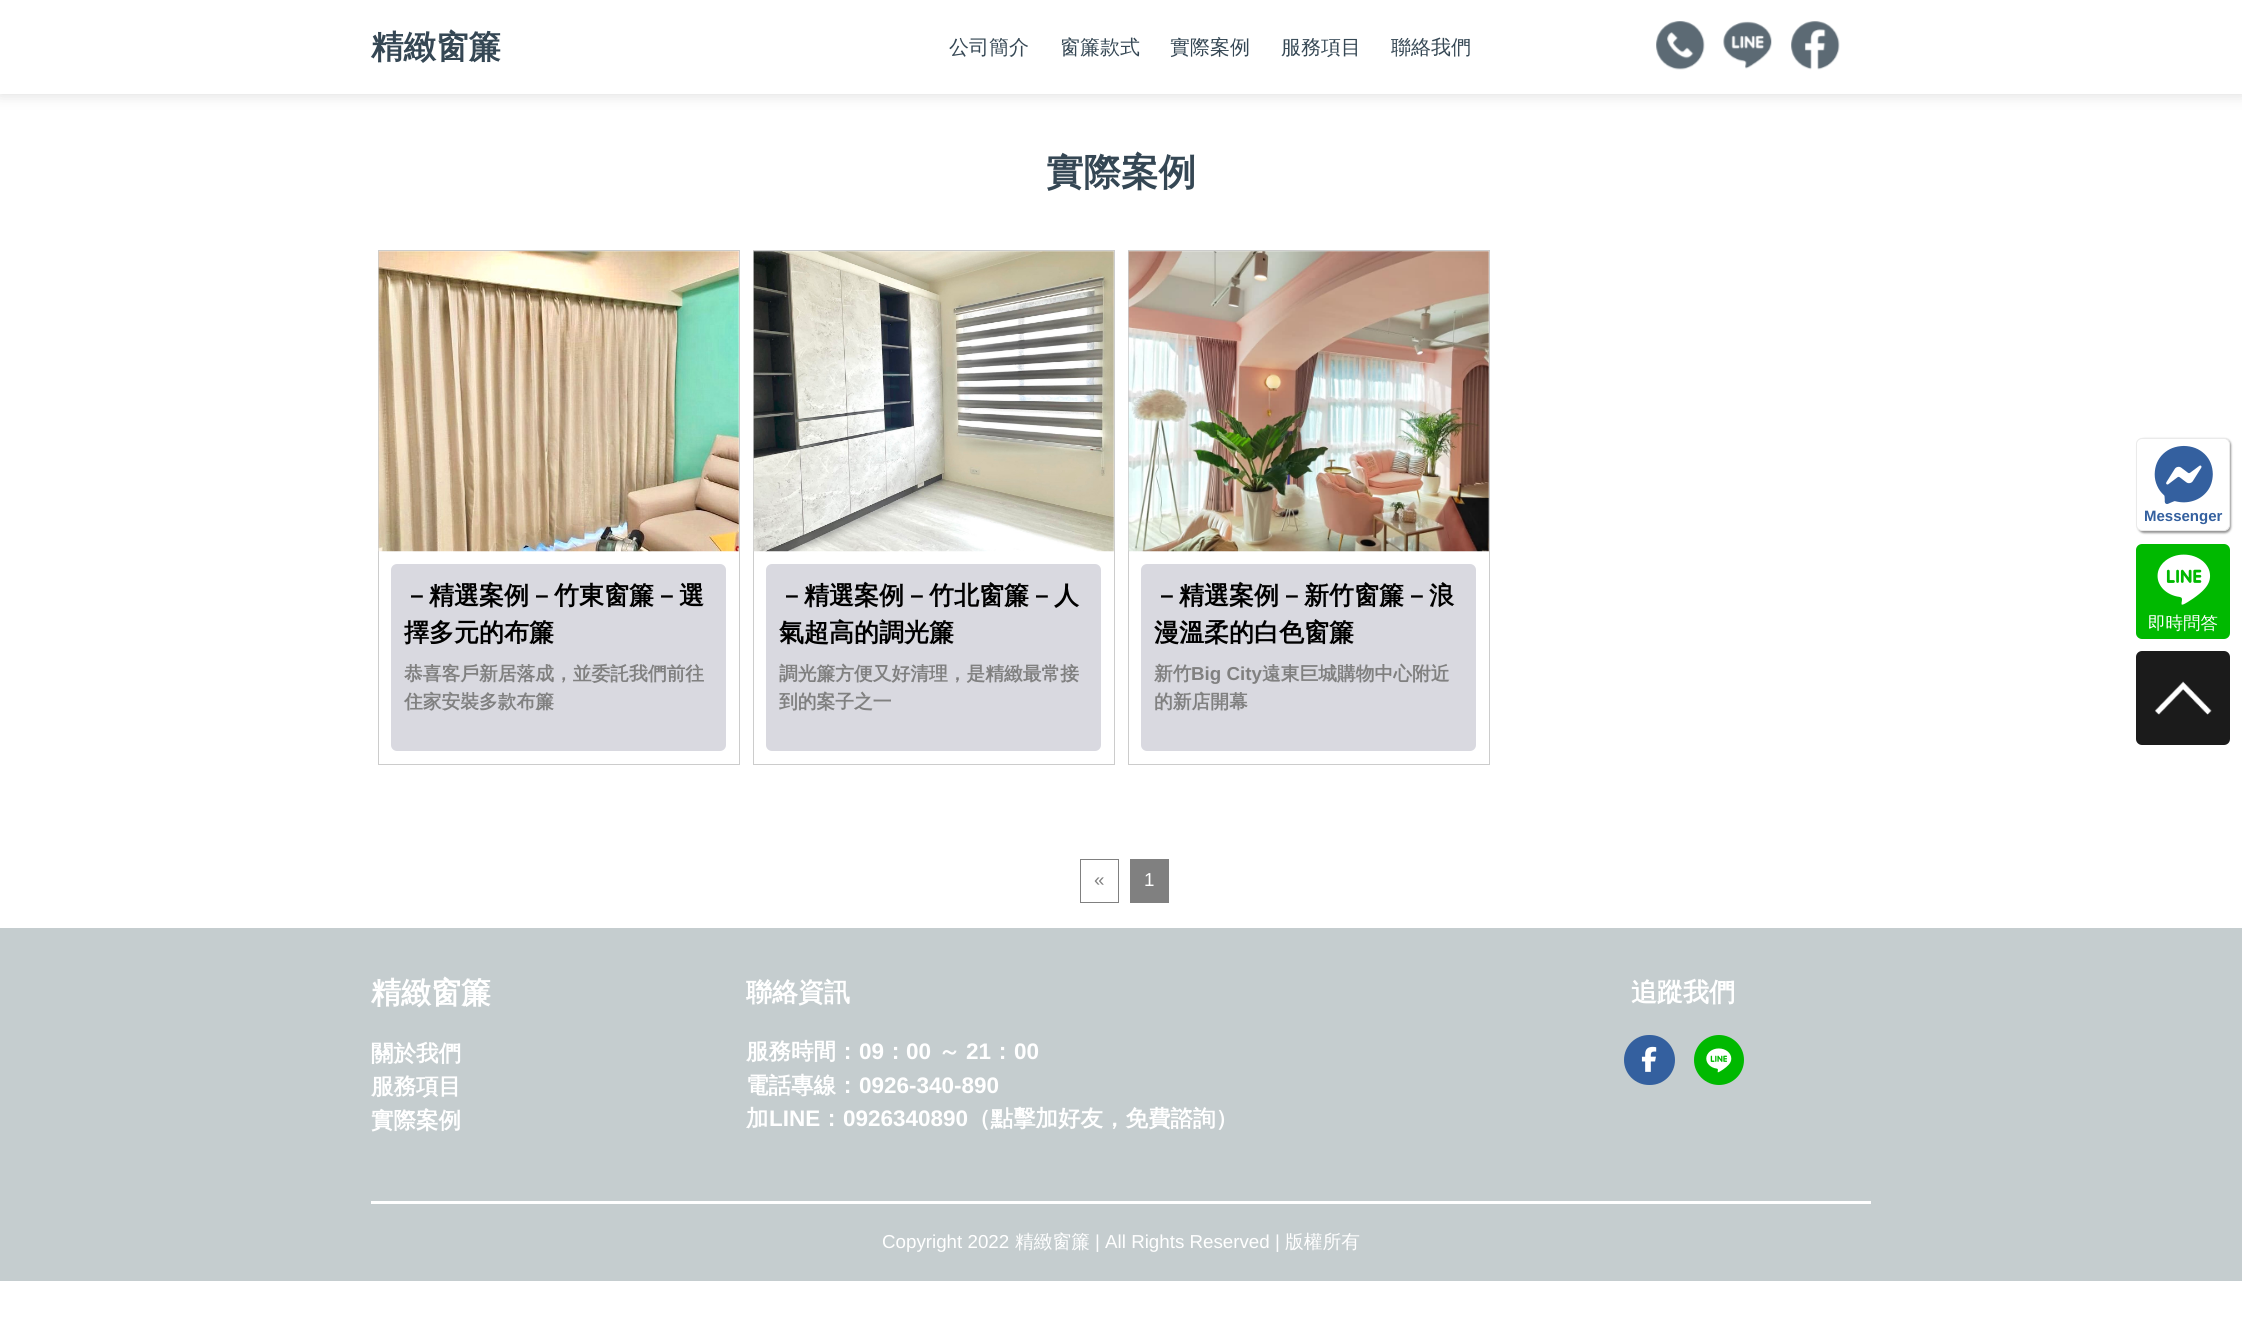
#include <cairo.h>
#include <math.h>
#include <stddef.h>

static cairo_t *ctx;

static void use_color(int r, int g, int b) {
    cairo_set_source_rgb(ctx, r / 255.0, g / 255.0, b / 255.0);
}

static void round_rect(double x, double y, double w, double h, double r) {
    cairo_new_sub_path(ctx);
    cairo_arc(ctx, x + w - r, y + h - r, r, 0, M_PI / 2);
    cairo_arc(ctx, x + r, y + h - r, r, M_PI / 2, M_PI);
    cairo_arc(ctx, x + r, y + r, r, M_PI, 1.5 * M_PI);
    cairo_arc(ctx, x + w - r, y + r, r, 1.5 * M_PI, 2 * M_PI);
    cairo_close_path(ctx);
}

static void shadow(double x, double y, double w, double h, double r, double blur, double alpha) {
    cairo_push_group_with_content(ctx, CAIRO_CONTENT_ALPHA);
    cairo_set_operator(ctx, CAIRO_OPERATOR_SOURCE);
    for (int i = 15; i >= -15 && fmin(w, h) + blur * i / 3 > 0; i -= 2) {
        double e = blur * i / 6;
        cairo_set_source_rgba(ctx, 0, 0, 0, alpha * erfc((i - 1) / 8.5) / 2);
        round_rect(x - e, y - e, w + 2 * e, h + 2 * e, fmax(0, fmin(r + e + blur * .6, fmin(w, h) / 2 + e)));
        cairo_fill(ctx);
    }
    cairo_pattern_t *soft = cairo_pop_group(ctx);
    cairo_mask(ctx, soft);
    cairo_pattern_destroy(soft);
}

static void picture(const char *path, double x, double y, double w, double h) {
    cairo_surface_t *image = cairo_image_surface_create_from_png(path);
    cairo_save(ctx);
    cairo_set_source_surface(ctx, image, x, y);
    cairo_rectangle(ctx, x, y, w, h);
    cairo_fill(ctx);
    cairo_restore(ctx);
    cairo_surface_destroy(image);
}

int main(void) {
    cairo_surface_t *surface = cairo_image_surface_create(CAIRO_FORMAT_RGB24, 2242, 1340);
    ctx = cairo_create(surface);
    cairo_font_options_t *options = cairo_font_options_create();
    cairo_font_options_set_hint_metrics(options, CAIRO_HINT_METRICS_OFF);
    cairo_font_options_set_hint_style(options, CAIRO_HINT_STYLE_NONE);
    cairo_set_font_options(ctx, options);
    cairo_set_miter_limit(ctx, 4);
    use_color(255, 255, 255);
    cairo_paint(ctx);
    use_color(217, 217, 217);
    shadow(0, 0, 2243, 94, 0, 7.5, 1);
    use_color(255, 255, 255);
    cairo_rectangle(ctx, 0, 0, 2242, 94);
    cairo_fill(ctx);
    cairo_select_font_face(ctx, "WenQuanYi Zen Hei", CAIRO_FONT_SLANT_NORMAL, CAIRO_FONT_WEIGHT_BOLD);
    cairo_set_font_size(ctx, 32.5);
    use_color(53, 71, 84);
    cairo_move_to(ctx, 371, 58);
    cairo_show_text(ctx, "精緻窗簾");
    cairo_select_font_face(ctx, "WenQuanYi Zen Hei Medium", CAIRO_FONT_SLANT_NORMAL, CAIRO_FONT_WEIGHT_NORMAL);
    cairo_set_font_size(ctx, 20);
    cairo_move_to(ctx, 949, 54);
    cairo_show_text(ctx, "公司簡介");
    cairo_move_to(ctx, 1060, 54);
    cairo_show_text(ctx, "窗簾款式");
    cairo_move_to(ctx, 1170, 54);
    cairo_show_text(ctx, "實際案例");
    cairo_move_to(ctx, 1281, 54);
    cairo_show_text(ctx, "服務項目");
    cairo_move_to(ctx, 1391, 54);
    cairo_show_text(ctx, "聯絡我們");
    picture("img1.png", 1656, 21, 49, 49);
    picture("img2.png", 1723, 21, 49, 48);
    picture("img3.png", 1791, 21, 49, 49);
    cairo_select_font_face(ctx, "WenQuanYi Zen Hei", CAIRO_FONT_SLANT_NORMAL, CAIRO_FONT_WEIGHT_BOLD);
    cairo_set_font_size(ctx, 37.5);
    cairo_move_to(ctx, 1046, 185);
    cairo_show_text(ctx, "實際案例");
    cairo_rectangle(ctx, 378.5, 250.5, 361, 514);
    use_color(204, 204, 204);
    cairo_set_line_width(ctx, 1);
    cairo_stroke(ctx);
    picture("img4.png", 378, 251, 361, 301);
    use_color(217, 217, 224);
    round_rect(391, 564, 335, 187, 6);
    cairo_fill(ctx);
    cairo_set_font_size(ctx, 25);
    use_color(0, 0, 0);
    cairo_move_to(ctx, 404, 604);
    cairo_show_text(ctx, "－精選案例－竹東窗簾－選");
    cairo_move_to(ctx, 404, 641);
    cairo_show_text(ctx, "擇多元的布簾");
    cairo_set_font_size(ctx, 18.75);
    use_color(128, 128, 128);
    cairo_move_to(ctx, 404, 680);
    cairo_show_text(ctx, "恭喜客戶新居落成，並委託我們前往");
    cairo_move_to(ctx, 404, 708);
    cairo_show_text(ctx, "住家安裝多款布簾");
    cairo_rectangle(ctx, 753.5, 250.5, 361, 514);
    use_color(204, 204, 204);
    cairo_stroke(ctx);
    picture("img5.png", 753, 251, 361, 301);
    use_color(217, 217, 224);
    round_rect(766, 564, 335, 187, 6);
    cairo_fill(ctx);
    cairo_set_font_size(ctx, 25);
    use_color(0, 0, 0);
    cairo_move_to(ctx, 779, 604);
    cairo_show_text(ctx, "－精選案例－竹北窗簾－人");
    cairo_move_to(ctx, 779, 641);
    cairo_show_text(ctx, "氣超高的調光簾");
    cairo_set_font_size(ctx, 18.75);
    use_color(128, 128, 128);
    cairo_move_to(ctx, 779, 680);
    cairo_show_text(ctx, "調光簾方便又好清理，是精緻最常接");
    cairo_move_to(ctx, 779, 708);
    cairo_show_text(ctx, "到的案子之一");
    cairo_rectangle(ctx, 1128.5, 250.5, 361, 514);
    use_color(204, 204, 204);
    cairo_stroke(ctx);
    picture("img6.png", 1128, 251, 361, 301);
    use_color(217, 217, 224);
    round_rect(1141, 564, 335, 187, 6);
    cairo_fill(ctx);
    cairo_set_font_size(ctx, 25);
    use_color(0, 0, 0);
    cairo_move_to(ctx, 1154, 604);
    cairo_show_text(ctx, "－精選案例－新竹窗簾－浪");
    cairo_move_to(ctx, 1154, 641);
    cairo_show_text(ctx, "漫溫柔的白色窗簾");
    cairo_set_font_size(ctx, 18.75);
    use_color(128, 128, 128);
    cairo_move_to(ctx, 1154, 680);
    cairo_show_text(ctx, "新竹");
    cairo_select_font_face(ctx, "Liberation Sans", CAIRO_FONT_SLANT_NORMAL, CAIRO_FONT_WEIGHT_BOLD);
    cairo_move_to(ctx, 1191, 680);
    cairo_show_text(ctx, "Big City");
    cairo_select_font_face(ctx, "WenQuanYi Zen Hei", CAIRO_FONT_SLANT_NORMAL, CAIRO_FONT_WEIGHT_BOLD);
    cairo_move_to(ctx, 1262, 680);
    cairo_show_text(ctx, "遠東巨城購物中心附近");
    cairo_move_to(ctx, 1154, 708);
    cairo_show_text(ctx, "的新店開幕");
    cairo_rectangle(ctx, 1080.5, 859.5, 38, 43);
    cairo_stroke(ctx);
    cairo_select_font_face(ctx, "Liberation Sans", CAIRO_FONT_SLANT_NORMAL, CAIRO_FONT_WEIGHT_NORMAL);
    cairo_move_to(ctx, 1094, 886);
    cairo_show_text(ctx, "«");
    cairo_rectangle(ctx, 1130, 859, 39, 44);
    cairo_fill(ctx);
    use_color(255, 255, 255);
    cairo_move_to(ctx, 1144, 886);
    cairo_show_text(ctx, "1");
    use_color(150, 150, 150);
    shadow(2138, 439, 93, 94, 6, 1, 1);
    use_color(255, 255, 255);
    round_rect(2136.5, 438.5, 93, 92, 5.5);
    cairo_fill_preserve(ctx);
    use_color(234, 234, 234);
    cairo_stroke(ctx);
    picture("img7.png", 2154, 445, 59, 59);
    cairo_select_font_face(ctx, "Liberation Sans", CAIRO_FONT_SLANT_NORMAL, CAIRO_FONT_WEIGHT_BOLD);
    cairo_set_font_size(ctx, 15);
    use_color(52, 96, 159);
    cairo_move_to(ctx, 2144, 521);
    cairo_show_text(ctx, "Messenger");
    use_color(0, 185, 0);
    round_rect(2136, 544, 94, 95, 6);
    cairo_fill(ctx);
    picture("img8.png", 2157, 554, 54, 51);
    cairo_select_font_face(ctx, "WenQuanYi Zen Hei Medium", CAIRO_FONT_SLANT_NORMAL, CAIRO_FONT_WEIGHT_NORMAL);
    cairo_set_font_size(ctx, 17.5);
    use_color(255, 255, 255);
    cairo_move_to(ctx, 2148, 629);
    cairo_show_text(ctx, "即時問答");
    use_color(27, 27, 27);
    round_rect(2136, 651, 94, 94, 6);
    cairo_fill(ctx);
    picture("img9.png", 2155, 681, 57, 34);
    use_color(197, 205, 207);
    cairo_rectangle(ctx, 0, 928, 2242, 353);
    cairo_fill(ctx);
    use_color(255, 255, 255);
    cairo_rectangle(ctx, 371, 1201, 1500, 3);
    cairo_fill(ctx);
    cairo_select_font_face(ctx, "WenQuanYi Zen Hei", CAIRO_FONT_SLANT_NORMAL, CAIRO_FONT_WEIGHT_BOLD);
    cairo_set_font_size(ctx, 30);
    cairo_move_to(ctx, 371, 1003);
    cairo_show_text(ctx, "精緻窗簾");
    cairo_set_font_size(ctx, 22.5);
    cairo_move_to(ctx, 371, 1061);
    cairo_show_text(ctx, "關於我們");
    cairo_move_to(ctx, 371, 1094);
    cairo_show_text(ctx, "服務項目");
    cairo_move_to(ctx, 371, 1128);
    cairo_show_text(ctx, "實際案例");
    cairo_set_font_size(ctx, 26);
    cairo_move_to(ctx, 746, 1001);
    cairo_show_text(ctx, "聯絡資訊");
    cairo_set_font_size(ctx, 22.5);
    cairo_move_to(ctx, 746, 1059);
    cairo_show_text(ctx, "服務時間：");
    cairo_select_font_face(ctx, "Liberation Sans", CAIRO_FONT_SLANT_NORMAL, CAIRO_FONT_WEIGHT_BOLD);
    cairo_move_to(ctx, 859, 1059);
    cairo_show_text(ctx, "09");
    cairo_select_font_face(ctx, "WenQuanYi Zen Hei", CAIRO_FONT_SLANT_NORMAL, CAIRO_FONT_WEIGHT_BOLD);
    cairo_move_to(ctx, 884, 1059);
    cairo_show_text(ctx, "：");
    cairo_select_font_face(ctx, "Liberation Sans", CAIRO_FONT_SLANT_NORMAL, CAIRO_FONT_WEIGHT_BOLD);
    cairo_move_to(ctx, 906, 1059);
    cairo_show_text(ctx, "00");
    cairo_select_font_face(ctx, "WenQuanYi Zen Hei", CAIRO_FONT_SLANT_NORMAL, CAIRO_FONT_WEIGHT_BOLD);
    cairo_move_to(ctx, 938, 1059);
    cairo_show_text(ctx, "～");
    cairo_select_font_face(ctx, "Liberation Sans", CAIRO_FONT_SLANT_NORMAL, CAIRO_FONT_WEIGHT_BOLD);
    cairo_move_to(ctx, 966, 1059);
    cairo_show_text(ctx, "21");
    cairo_select_font_face(ctx, "WenQuanYi Zen Hei", CAIRO_FONT_SLANT_NORMAL, CAIRO_FONT_WEIGHT_BOLD);
    cairo_move_to(ctx, 991, 1059);
    cairo_show_text(ctx, "：");
    cairo_select_font_face(ctx, "Liberation Sans", CAIRO_FONT_SLANT_NORMAL, CAIRO_FONT_WEIGHT_BOLD);
    cairo_move_to(ctx, 1014, 1059);
    cairo_show_text(ctx, "00");
    cairo_select_font_face(ctx, "WenQuanYi Zen Hei", CAIRO_FONT_SLANT_NORMAL, CAIRO_FONT_WEIGHT_BOLD);
    cairo_move_to(ctx, 746, 1093);
    cairo_show_text(ctx, "電話專線：");
    cairo_select_font_face(ctx, "Liberation Sans", CAIRO_FONT_SLANT_NORMAL, CAIRO_FONT_WEIGHT_BOLD);
    cairo_move_to(ctx, 859, 1093);
    cairo_show_text(ctx, "0926-340-890");
    cairo_select_font_face(ctx, "WenQuanYi Zen Hei", CAIRO_FONT_SLANT_NORMAL, CAIRO_FONT_WEIGHT_BOLD);
    cairo_move_to(ctx, 746, 1126);
    cairo_show_text(ctx, "加");
    cairo_select_font_face(ctx, "Liberation Sans", CAIRO_FONT_SLANT_NORMAL, CAIRO_FONT_WEIGHT_BOLD);
    cairo_move_to(ctx, 769, 1126);
    cairo_show_text(ctx, "LINE");
    cairo_select_font_face(ctx, "WenQuanYi Zen Hei", CAIRO_FONT_SLANT_NORMAL, CAIRO_FONT_WEIGHT_BOLD);
    cairo_move_to(ctx, 820, 1126);
    cairo_show_text(ctx, "：");
    cairo_select_font_face(ctx, "Liberation Sans", CAIRO_FONT_SLANT_NORMAL, CAIRO_FONT_WEIGHT_BOLD);
    cairo_move_to(ctx, 843, 1126);
    cairo_show_text(ctx, "0926340890");
    cairo_select_font_face(ctx, "WenQuanYi Zen Hei", CAIRO_FONT_SLANT_NORMAL, CAIRO_FONT_WEIGHT_BOLD);
    cairo_move_to(ctx, 968, 1126);
    cairo_show_text(ctx, "（點擊加好友，免費諮詢）");
    cairo_set_font_size(ctx, 26);
    cairo_move_to(ctx, 1631, 1001);
    cairo_show_text(ctx, "追蹤我們");
    use_color(52, 96, 159);
    round_rect(1624, 1035, 51, 50, 25);
    cairo_fill(ctx);
    picture("img10.png", 1641, 1046, 16, 26);
    use_color(0, 185, 0);
    cairo_arc(ctx, 1719, 1060, 25, 0, 2 * M_PI);
    cairo_fill(ctx);
    picture("img11.png", 1706, 1048, 26, 25);
    cairo_select_font_face(ctx, "Liberation Sans", CAIRO_FONT_SLANT_NORMAL, CAIRO_FONT_WEIGHT_NORMAL);
    cairo_set_font_size(ctx, 18.75);
    use_color(255, 255, 255);
    cairo_move_to(ctx, 882, 1248);
    cairo_show_text(ctx, "Copyright 2022");
    cairo_select_font_face(ctx, "WenQuanYi Zen Hei Medium", CAIRO_FONT_SLANT_NORMAL, CAIRO_FONT_WEIGHT_NORMAL);
    cairo_move_to(ctx, 1015, 1248);
    cairo_show_text(ctx, "精緻窗簾");
    cairo_select_font_face(ctx, "Liberation Sans", CAIRO_FONT_SLANT_NORMAL, CAIRO_FONT_WEIGHT_NORMAL);
    cairo_move_to(ctx, 1095, 1248);
    cairo_show_text(ctx, "| All Rights Reserved |");
    cairo_select_font_face(ctx, "WenQuanYi Zen Hei Medium", CAIRO_FONT_SLANT_NORMAL, CAIRO_FONT_WEIGHT_NORMAL);
    cairo_move_to(ctx, 1285, 1248);
    cairo_show_text(ctx, "版權所有");
    cairo_surface_write_to_png(surface, "result.png");
    cairo_font_options_destroy(options);
    cairo_destroy(ctx);
    cairo_surface_destroy(surface);
    return 0;
}
